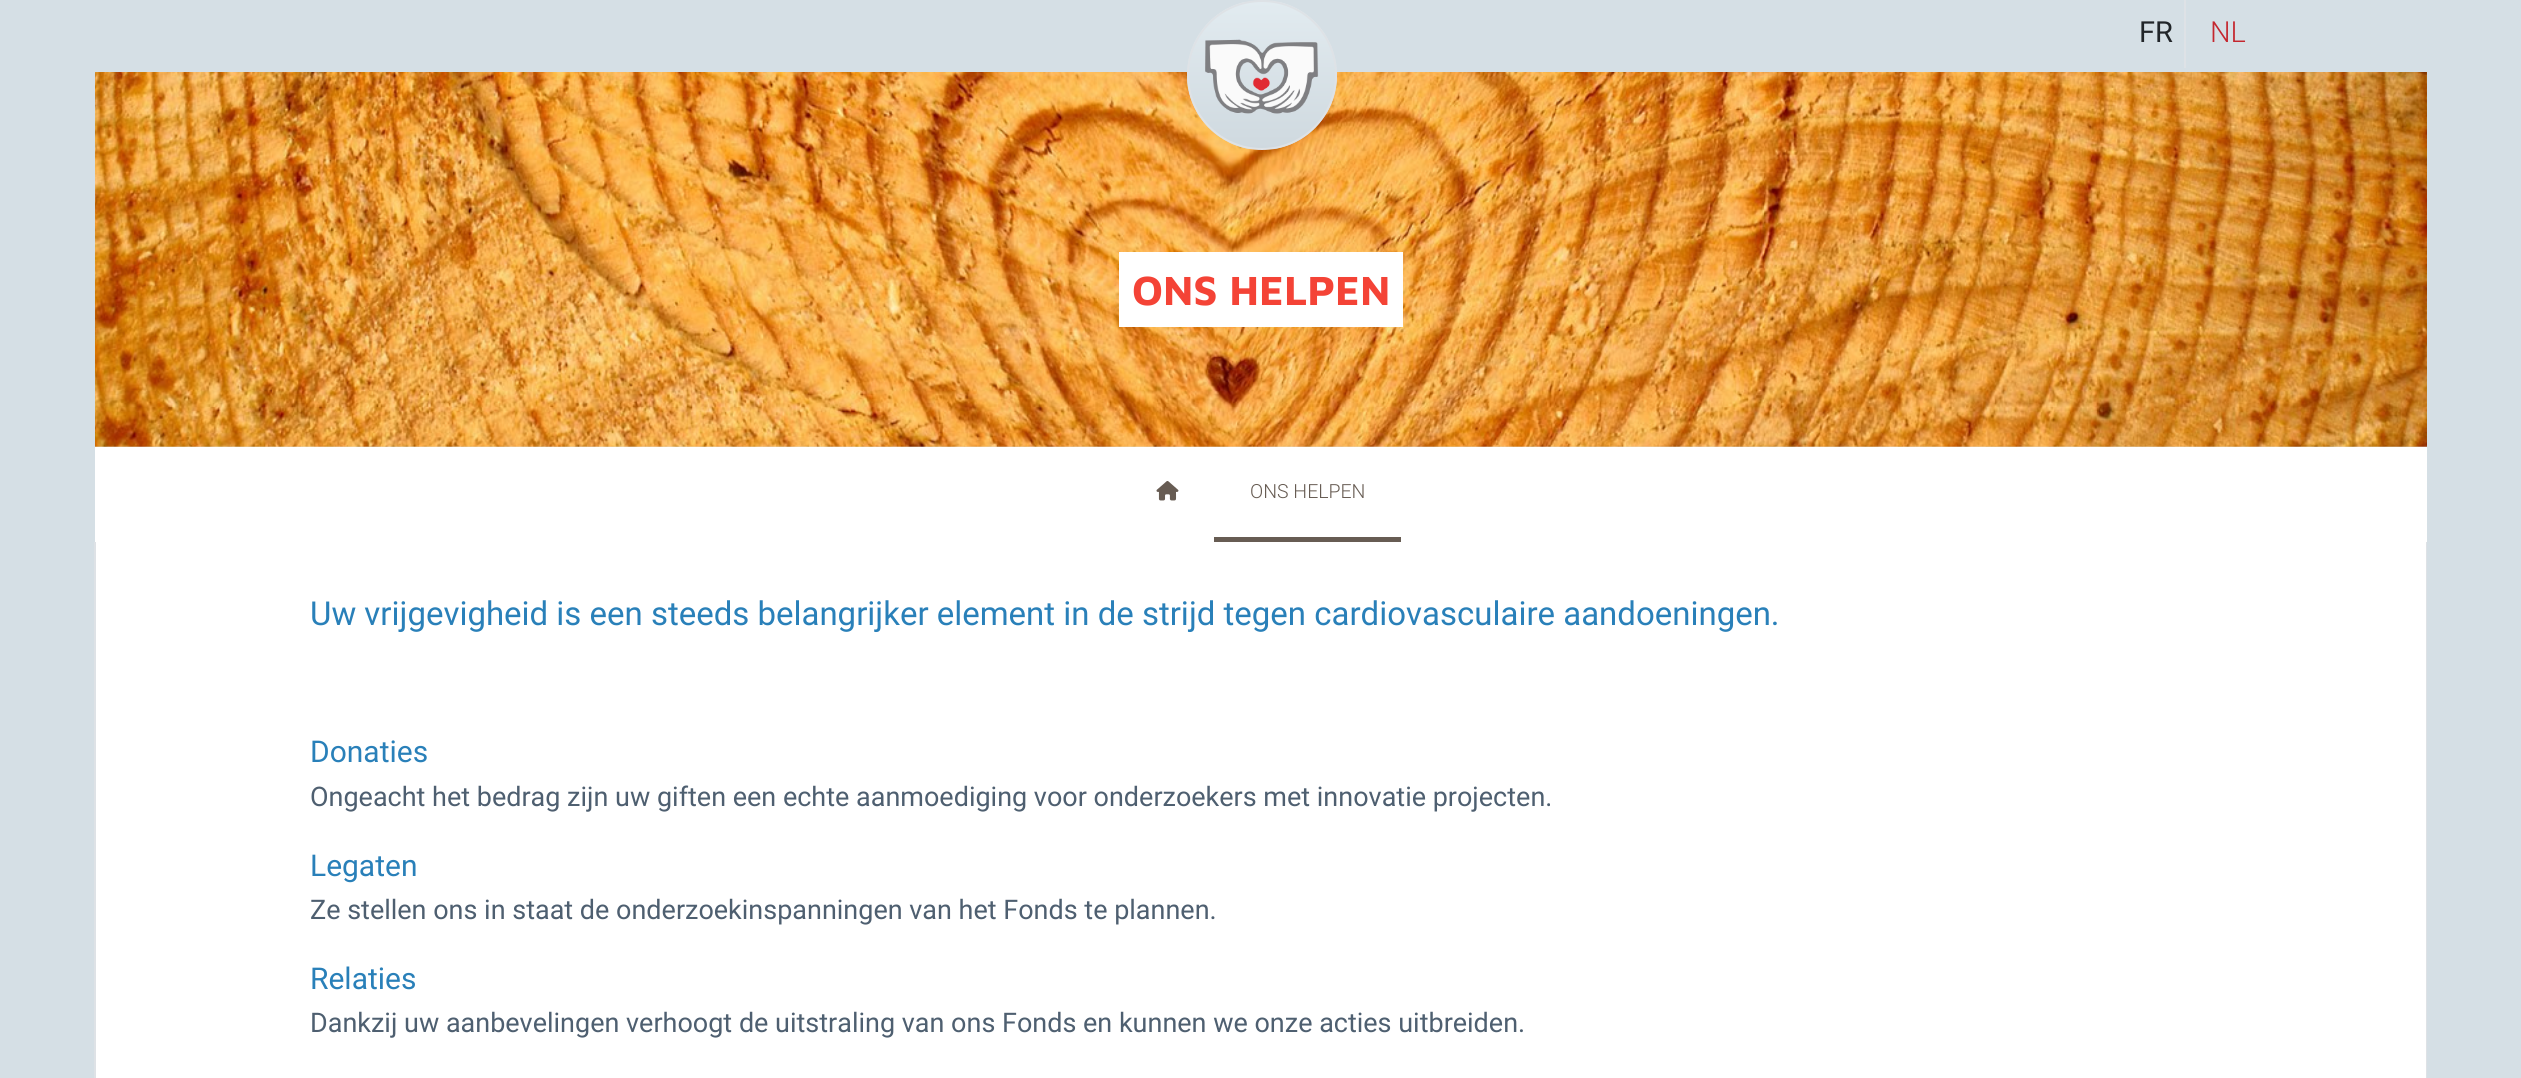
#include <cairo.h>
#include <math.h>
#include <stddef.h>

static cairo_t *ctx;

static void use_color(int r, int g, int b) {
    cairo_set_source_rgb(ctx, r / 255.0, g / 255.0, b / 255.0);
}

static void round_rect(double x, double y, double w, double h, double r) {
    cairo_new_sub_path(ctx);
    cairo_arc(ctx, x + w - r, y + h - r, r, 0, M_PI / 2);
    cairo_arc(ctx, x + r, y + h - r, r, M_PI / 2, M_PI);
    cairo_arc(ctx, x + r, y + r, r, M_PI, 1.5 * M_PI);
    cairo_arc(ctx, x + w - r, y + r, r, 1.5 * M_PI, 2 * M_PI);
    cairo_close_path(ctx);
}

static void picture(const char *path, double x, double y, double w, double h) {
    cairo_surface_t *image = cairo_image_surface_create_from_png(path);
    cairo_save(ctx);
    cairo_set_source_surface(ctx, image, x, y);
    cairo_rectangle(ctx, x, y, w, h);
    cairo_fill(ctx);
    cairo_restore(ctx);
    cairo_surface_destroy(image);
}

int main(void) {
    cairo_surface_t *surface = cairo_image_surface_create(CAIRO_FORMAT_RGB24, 2521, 1078);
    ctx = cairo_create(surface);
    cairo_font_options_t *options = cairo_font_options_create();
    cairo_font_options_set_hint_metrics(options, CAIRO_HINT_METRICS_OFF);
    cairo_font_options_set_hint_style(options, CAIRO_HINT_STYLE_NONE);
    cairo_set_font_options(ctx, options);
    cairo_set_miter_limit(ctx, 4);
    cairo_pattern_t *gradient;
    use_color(213, 223, 229);
    cairo_paint(ctx);
    picture("img2.png", 95, 72, 2332, 375);
    cairo_save(ctx);
    round_rect(1187, 0, 150, 150, 75);
    cairo_clip(ctx);
    gradient = cairo_pattern_create_linear(1262, 149, 1262, 1.5);
    cairo_pattern_add_color_stop_rgba(gradient, 0, 0.812, 0.851, 0.875, 1);
    cairo_pattern_add_color_stop_rgba(gradient, 1, 0.886, 0.922, 0.941, 1);
    cairo_set_source(ctx, gradient);
    cairo_pattern_destroy(gradient);
    cairo_rectangle(ctx, 1187, 2, 150, 147);
    cairo_fill(ctx);
    cairo_restore(ctx);
    cairo_arc(ctx, 1262, 75, 74, 0, 2 * M_PI);
    use_color(222, 226, 230);
    cairo_stroke(ctx);
    picture("img1.png", 1205, 39, 114, 75);
    cairo_select_font_face(ctx, "Roboto", CAIRO_FONT_SLANT_NORMAL, CAIRO_FONT_WEIGHT_NORMAL);
    cairo_set_font_size(ctx, 29);
    use_color(33, 37, 41);
    cairo_move_to(ctx, 2139, 42);
    cairo_show_text(ctx, "FR");
    use_color(222, 226, 230);
    cairo_rectangle(ctx, 2184, 0, 2, 68);
    cairo_fill(ctx);
    cairo_select_font_face(ctx, "Roboto Light", CAIRO_FONT_SLANT_NORMAL, CAIRO_FONT_WEIGHT_NORMAL);
    use_color(196, 38, 46);
    cairo_move_to(ctx, 2210, 42);
    cairo_show_text(ctx, "NL");
    use_color(255, 255, 255);
    cairo_rectangle(ctx, 1119, 252, 284, 75);
    cairo_fill(ctx);
    cairo_select_font_face(ctx, "Maven Pro", CAIRO_FONT_SLANT_NORMAL, CAIRO_FONT_WEIGHT_BOLD);
    cairo_set_font_size(ctx, 42);
    use_color(244, 67, 54);
    cairo_move_to(ctx, 1132, 305);
    cairo_show_text(ctx, "ONS HELPEN");
    use_color(255, 255, 255);
    cairo_rectangle(ctx, 95, 447, 2332, 631);
    cairo_fill(ctx);
    picture("img3.png", 1156, 481, 23, 20);
    use_color(103, 92, 83);
    cairo_rectangle(ctx, 1214, 537, 187, 5);
    cairo_fill(ctx);
    cairo_select_font_face(ctx, "Roboto Light", CAIRO_FONT_SLANT_NORMAL, CAIRO_FONT_WEIGHT_NORMAL);
    cairo_set_font_size(ctx, 19.5);
    cairo_move_to(ctx, 1250, 498);
    cairo_show_text(ctx, "ONS HELPEN");
    use_color(222, 226, 230);
    cairo_set_fill_rule(ctx, CAIRO_FILL_RULE_EVEN_ODD);
    cairo_new_path(ctx);
    cairo_move_to(ctx, 94, 542);
    cairo_line_to(ctx, 2427, 542);
    cairo_line_to(ctx, 2427, 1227);
    cairo_curve_to(ctx, 2427, 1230, 2424, 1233, 2421, 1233);
    cairo_line_to(ctx, 100, 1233);
    cairo_curve_to(ctx, 97, 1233, 94, 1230, 94, 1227);
    cairo_close_path(ctx);
    cairo_move_to(ctx, 96, 542);
    cairo_line_to(ctx, 2426, 542);
    cairo_line_to(ctx, 2426, 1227);
    cairo_curve_to(ctx, 2426, 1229, 2423, 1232, 2421, 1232);
    cairo_line_to(ctx, 100, 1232);
    cairo_curve_to(ctx, 98, 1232, 96, 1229, 96, 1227);
    cairo_close_path(ctx);
    cairo_fill(ctx);
    cairo_select_font_face(ctx, "Roboto", CAIRO_FONT_SLANT_NORMAL, CAIRO_FONT_WEIGHT_NORMAL);
    cairo_set_font_size(ctx, 33);
    use_color(41, 128, 185);
    cairo_move_to(ctx, 310, 625);
    cairo_show_text(ctx, "Uw vrijgevigheid is een steeds belangrijker element in de strijd tegen cardiovasculaire aandoeningen.");
    cairo_set_font_size(ctx, 30);
    cairo_move_to(ctx, 310, 762);
    cairo_show_text(ctx, "Donaties");
    cairo_set_font_size(ctx, 27);
    use_color(78, 95, 112);
    cairo_move_to(ctx, 310, 806);
    cairo_show_text(ctx, "Ongeacht het bedrag zijn uw giften een echte aanmoediging voor onderzoekers met innovatie projecten.");
    cairo_set_font_size(ctx, 30);
    use_color(41, 128, 185);
    cairo_move_to(ctx, 310, 876);
    cairo_show_text(ctx, "Legaten");
    cairo_set_font_size(ctx, 27);
    use_color(78, 95, 112);
    cairo_move_to(ctx, 310, 919);
    cairo_show_text(ctx, "Ze stellen ons in staat de onderzoekinspanningen van het Fonds te plannen.");
    cairo_set_font_size(ctx, 30);
    use_color(41, 128, 185);
    cairo_move_to(ctx, 310, 989);
    cairo_show_text(ctx, "Relaties");
    cairo_set_font_size(ctx, 27);
    use_color(78, 95, 112);
    cairo_move_to(ctx, 310, 1032);
    cairo_show_text(ctx, "Dankzij uw aanbevelingen verhoogt de uitstraling van ons Fonds en kunnen we onze acties uitbreiden.");
    cairo_surface_write_to_png(surface, "result.png");
    cairo_font_options_destroy(options);
    cairo_destroy(ctx);
    cairo_surface_destroy(surface);
    return 0;
}
